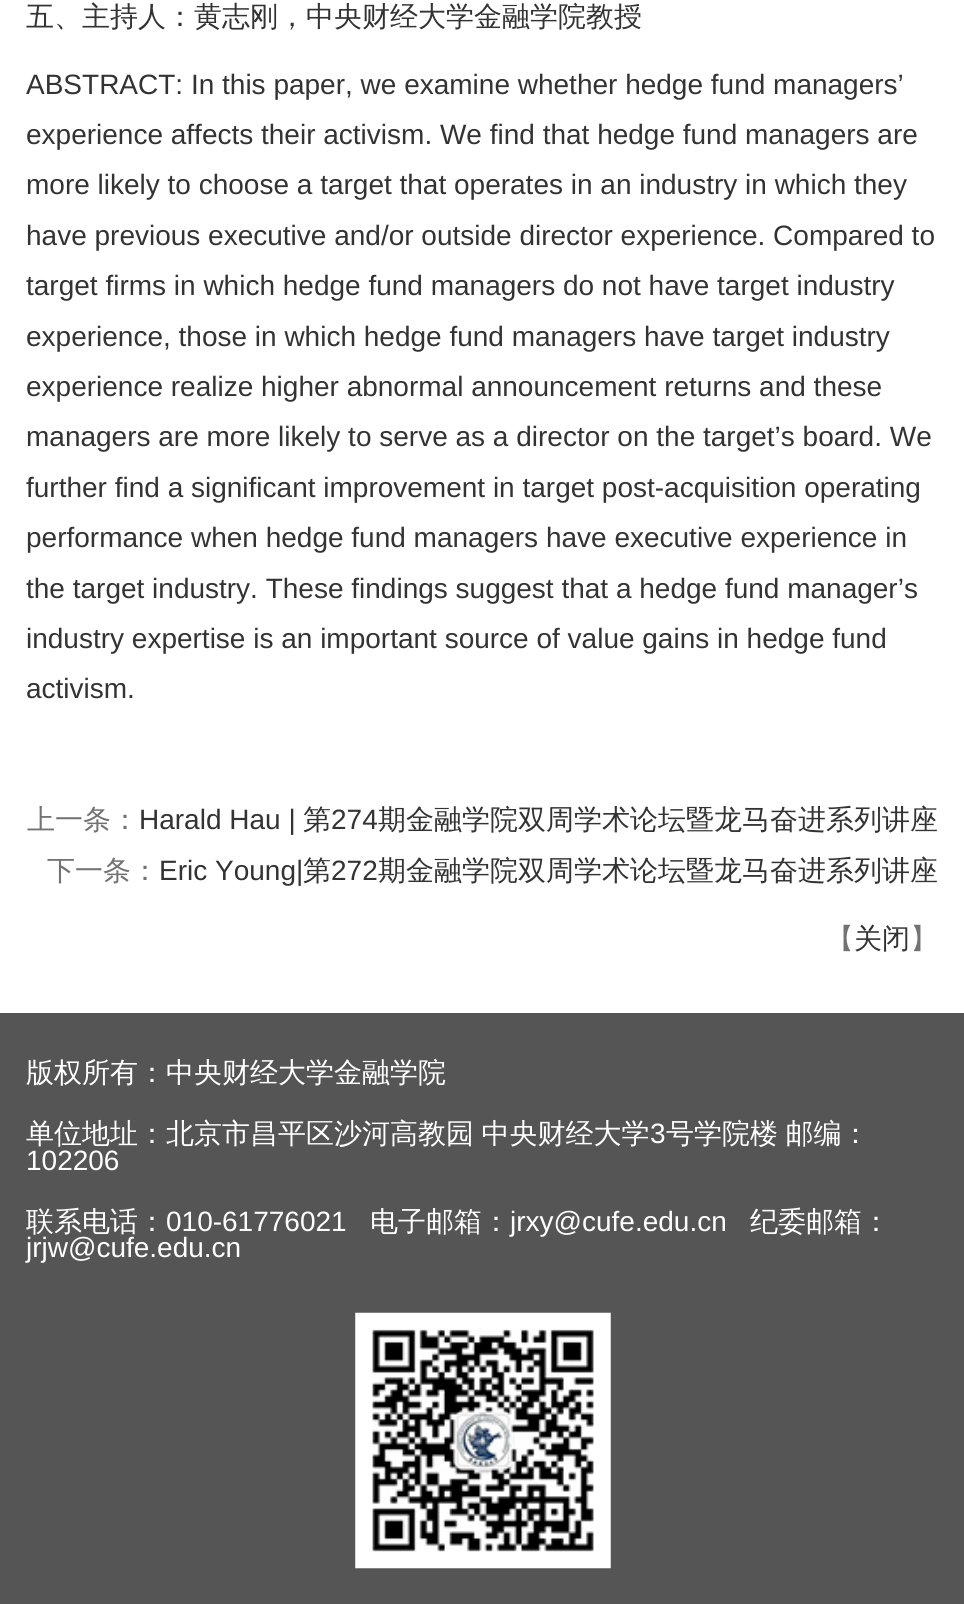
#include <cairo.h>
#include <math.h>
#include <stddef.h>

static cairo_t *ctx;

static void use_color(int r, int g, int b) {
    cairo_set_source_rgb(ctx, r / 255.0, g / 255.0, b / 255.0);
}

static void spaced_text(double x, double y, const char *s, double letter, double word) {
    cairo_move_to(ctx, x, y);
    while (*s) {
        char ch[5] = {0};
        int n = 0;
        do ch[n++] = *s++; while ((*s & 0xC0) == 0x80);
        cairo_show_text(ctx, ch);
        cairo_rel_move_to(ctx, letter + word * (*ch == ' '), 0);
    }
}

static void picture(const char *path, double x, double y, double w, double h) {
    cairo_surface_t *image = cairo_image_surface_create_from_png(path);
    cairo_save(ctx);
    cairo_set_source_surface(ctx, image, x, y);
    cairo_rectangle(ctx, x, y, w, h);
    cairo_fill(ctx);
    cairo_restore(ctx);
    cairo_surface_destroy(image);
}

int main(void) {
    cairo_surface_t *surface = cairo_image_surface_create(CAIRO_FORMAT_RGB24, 964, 1604);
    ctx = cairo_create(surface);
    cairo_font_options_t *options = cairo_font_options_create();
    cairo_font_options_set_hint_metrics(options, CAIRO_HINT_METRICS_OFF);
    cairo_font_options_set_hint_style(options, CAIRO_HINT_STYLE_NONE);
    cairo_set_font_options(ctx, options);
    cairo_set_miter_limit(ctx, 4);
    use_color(255, 255, 255);
    cairo_paint(ctx);
    cairo_select_font_face(ctx, "WenQuanYi Zen Hei Medium", CAIRO_FONT_SLANT_NORMAL, CAIRO_FONT_WEIGHT_NORMAL);
    cairo_set_font_size(ctx, 28);
    use_color(51, 51, 51);
    cairo_move_to(ctx, 26, 26);
    cairo_show_text(ctx, "五、主持人：黄志刚，中央财经大学金融学院教授");
    cairo_select_font_face(ctx, "Liberation Sans", CAIRO_FONT_SLANT_NORMAL, CAIRO_FONT_WEIGHT_NORMAL);
    cairo_move_to(ctx, 26, 94);
    cairo_show_text(ctx, "ABSTRACT: In this paper, we examine whether hedge fund managers’");
    cairo_move_to(ctx, 26, 144);
    cairo_show_text(ctx, "experience affects their activism. We find that hedge fund managers are");
    cairo_move_to(ctx, 26, 194);
    cairo_show_text(ctx, "more likely to choose a target that operates in an industry in which they");
    cairo_move_to(ctx, 26, 245);
    cairo_show_text(ctx, "have previous executive and/or outside director experience. Compared to");
    cairo_move_to(ctx, 26, 295);
    cairo_show_text(ctx, "target firms in which hedge fund managers do not have target industry");
    cairo_move_to(ctx, 26, 346);
    cairo_show_text(ctx, "experience, those in which hedge fund managers have target industry");
    cairo_move_to(ctx, 26, 396);
    cairo_show_text(ctx, "experience realize higher abnormal announcement returns and these");
    cairo_move_to(ctx, 26, 446);
    cairo_show_text(ctx, "managers are more likely to serve as a director on the target’s board. We");
    cairo_move_to(ctx, 26, 497);
    cairo_show_text(ctx, "further find a significant improvement in target post-acquisition operating");
    cairo_move_to(ctx, 26, 547);
    cairo_show_text(ctx, "performance when hedge fund managers have executive experience in");
    cairo_move_to(ctx, 26, 598);
    cairo_show_text(ctx, "the target industry. These findings suggest that a hedge fund manager’s");
    cairo_move_to(ctx, 26, 648);
    cairo_show_text(ctx, "industry expertise is an important source of value gains in hedge fund");
    cairo_move_to(ctx, 26, 698);
    cairo_show_text(ctx, "activism.");
    cairo_select_font_face(ctx, "WenQuanYi Zen Hei Medium", CAIRO_FONT_SLANT_NORMAL, CAIRO_FONT_WEIGHT_NORMAL);
    use_color(114, 114, 114);
    cairo_move_to(ctx, 27, 829);
    cairo_show_text(ctx, "上一条：");
    cairo_select_font_face(ctx, "Liberation Sans", CAIRO_FONT_SLANT_NORMAL, CAIRO_FONT_WEIGHT_NORMAL);
    use_color(51, 51, 51);
    cairo_move_to(ctx, 139, 829);
    cairo_show_text(ctx, "Harald Hau |");
    cairo_select_font_face(ctx, "WenQuanYi Zen Hei Medium", CAIRO_FONT_SLANT_NORMAL, CAIRO_FONT_WEIGHT_NORMAL);
    cairo_move_to(ctx, 303, 829);
    cairo_show_text(ctx, "第");
    cairo_select_font_face(ctx, "Liberation Sans", CAIRO_FONT_SLANT_NORMAL, CAIRO_FONT_WEIGHT_NORMAL);
    cairo_move_to(ctx, 331, 829);
    cairo_show_text(ctx, "274");
    cairo_select_font_face(ctx, "WenQuanYi Zen Hei Medium", CAIRO_FONT_SLANT_NORMAL, CAIRO_FONT_WEIGHT_NORMAL);
    cairo_move_to(ctx, 378, 829);
    cairo_show_text(ctx, "期金融学院双周学术论坛暨龙马奋进系列讲座");
    use_color(114, 114, 114);
    cairo_move_to(ctx, 47, 880);
    cairo_show_text(ctx, "下一条：");
    cairo_select_font_face(ctx, "Liberation Sans", CAIRO_FONT_SLANT_NORMAL, CAIRO_FONT_WEIGHT_NORMAL);
    use_color(51, 51, 51);
    cairo_move_to(ctx, 159, 880);
    cairo_show_text(ctx, "Eric Young|");
    cairo_select_font_face(ctx, "WenQuanYi Zen Hei Medium", CAIRO_FONT_SLANT_NORMAL, CAIRO_FONT_WEIGHT_NORMAL);
    cairo_move_to(ctx, 303, 880);
    cairo_show_text(ctx, "第");
    cairo_select_font_face(ctx, "Liberation Sans", CAIRO_FONT_SLANT_NORMAL, CAIRO_FONT_WEIGHT_NORMAL);
    cairo_move_to(ctx, 331, 880);
    cairo_show_text(ctx, "272");
    cairo_select_font_face(ctx, "WenQuanYi Zen Hei Medium", CAIRO_FONT_SLANT_NORMAL, CAIRO_FONT_WEIGHT_NORMAL);
    cairo_move_to(ctx, 378, 880);
    cairo_show_text(ctx, "期金融学院双周学术论坛暨龙马奋进系列讲座");
    use_color(114, 114, 114);
    cairo_move_to(ctx, 826, 948);
    cairo_show_text(ctx, "【");
    use_color(51, 51, 51);
    cairo_move_to(ctx, 854, 948);
    cairo_show_text(ctx, "关闭");
    use_color(114, 114, 114);
    cairo_move_to(ctx, 910, 948);
    cairo_show_text(ctx, "】");
    use_color(85, 85, 85);
    cairo_rectangle(ctx, 0, 1013, 964, 591);
    cairo_fill(ctx);
    use_color(255, 255, 255);
    cairo_move_to(ctx, 26, 1082);
    cairo_show_text(ctx, "版权所有：中央财经大学金融学院");
    spaced_text(26, 1143, "单位地址：北京市昌平区沙河高教园 中央财经大学", 0, -1);
    cairo_select_font_face(ctx, "Liberation Sans", CAIRO_FONT_SLANT_NORMAL, CAIRO_FONT_WEIGHT_NORMAL);
    cairo_move_to(ctx, 650, 1143);
    cairo_show_text(ctx, "3");
    cairo_select_font_face(ctx, "WenQuanYi Zen Hei Medium", CAIRO_FONT_SLANT_NORMAL, CAIRO_FONT_WEIGHT_NORMAL);
    spaced_text(666, 1143, "号学院楼 邮编：", 0, -1);
    cairo_select_font_face(ctx, "Liberation Sans", CAIRO_FONT_SLANT_NORMAL, CAIRO_FONT_WEIGHT_NORMAL);
    cairo_move_to(ctx, 26, 1170);
    cairo_show_text(ctx, "102206");
    cairo_select_font_face(ctx, "WenQuanYi Zen Hei Medium", CAIRO_FONT_SLANT_NORMAL, CAIRO_FONT_WEIGHT_NORMAL);
    cairo_move_to(ctx, 26, 1231);
    cairo_show_text(ctx, "联系电话：");
    cairo_select_font_face(ctx, "Liberation Sans", CAIRO_FONT_SLANT_NORMAL, CAIRO_FONT_WEIGHT_NORMAL);
    cairo_move_to(ctx, 166, 1231);
    cairo_show_text(ctx, "010-61776021");
    cairo_select_font_face(ctx, "WenQuanYi Zen Hei Medium", CAIRO_FONT_SLANT_NORMAL, CAIRO_FONT_WEIGHT_NORMAL);
    cairo_move_to(ctx, 370, 1231);
    cairo_show_text(ctx, "电子邮箱：");
    cairo_select_font_face(ctx, "Liberation Sans", CAIRO_FONT_SLANT_NORMAL, CAIRO_FONT_WEIGHT_NORMAL);
    cairo_move_to(ctx, 510, 1231);
    cairo_show_text(ctx, "jrxy@cufe.edu.cn");
    cairo_select_font_face(ctx, "WenQuanYi Zen Hei Medium", CAIRO_FONT_SLANT_NORMAL, CAIRO_FONT_WEIGHT_NORMAL);
    cairo_move_to(ctx, 750, 1231);
    cairo_show_text(ctx, "纪委邮箱：");
    cairo_select_font_face(ctx, "Liberation Sans", CAIRO_FONT_SLANT_NORMAL, CAIRO_FONT_WEIGHT_NORMAL);
    cairo_move_to(ctx, 26, 1257);
    cairo_show_text(ctx, "jrjw@cufe.edu.cn");
    picture("img1.png", 355, 1312, 256, 257);
    cairo_surface_write_to_png(surface, "result.png");
    cairo_font_options_destroy(options);
    cairo_destroy(ctx);
    cairo_surface_destroy(surface);
    return 0;
}
